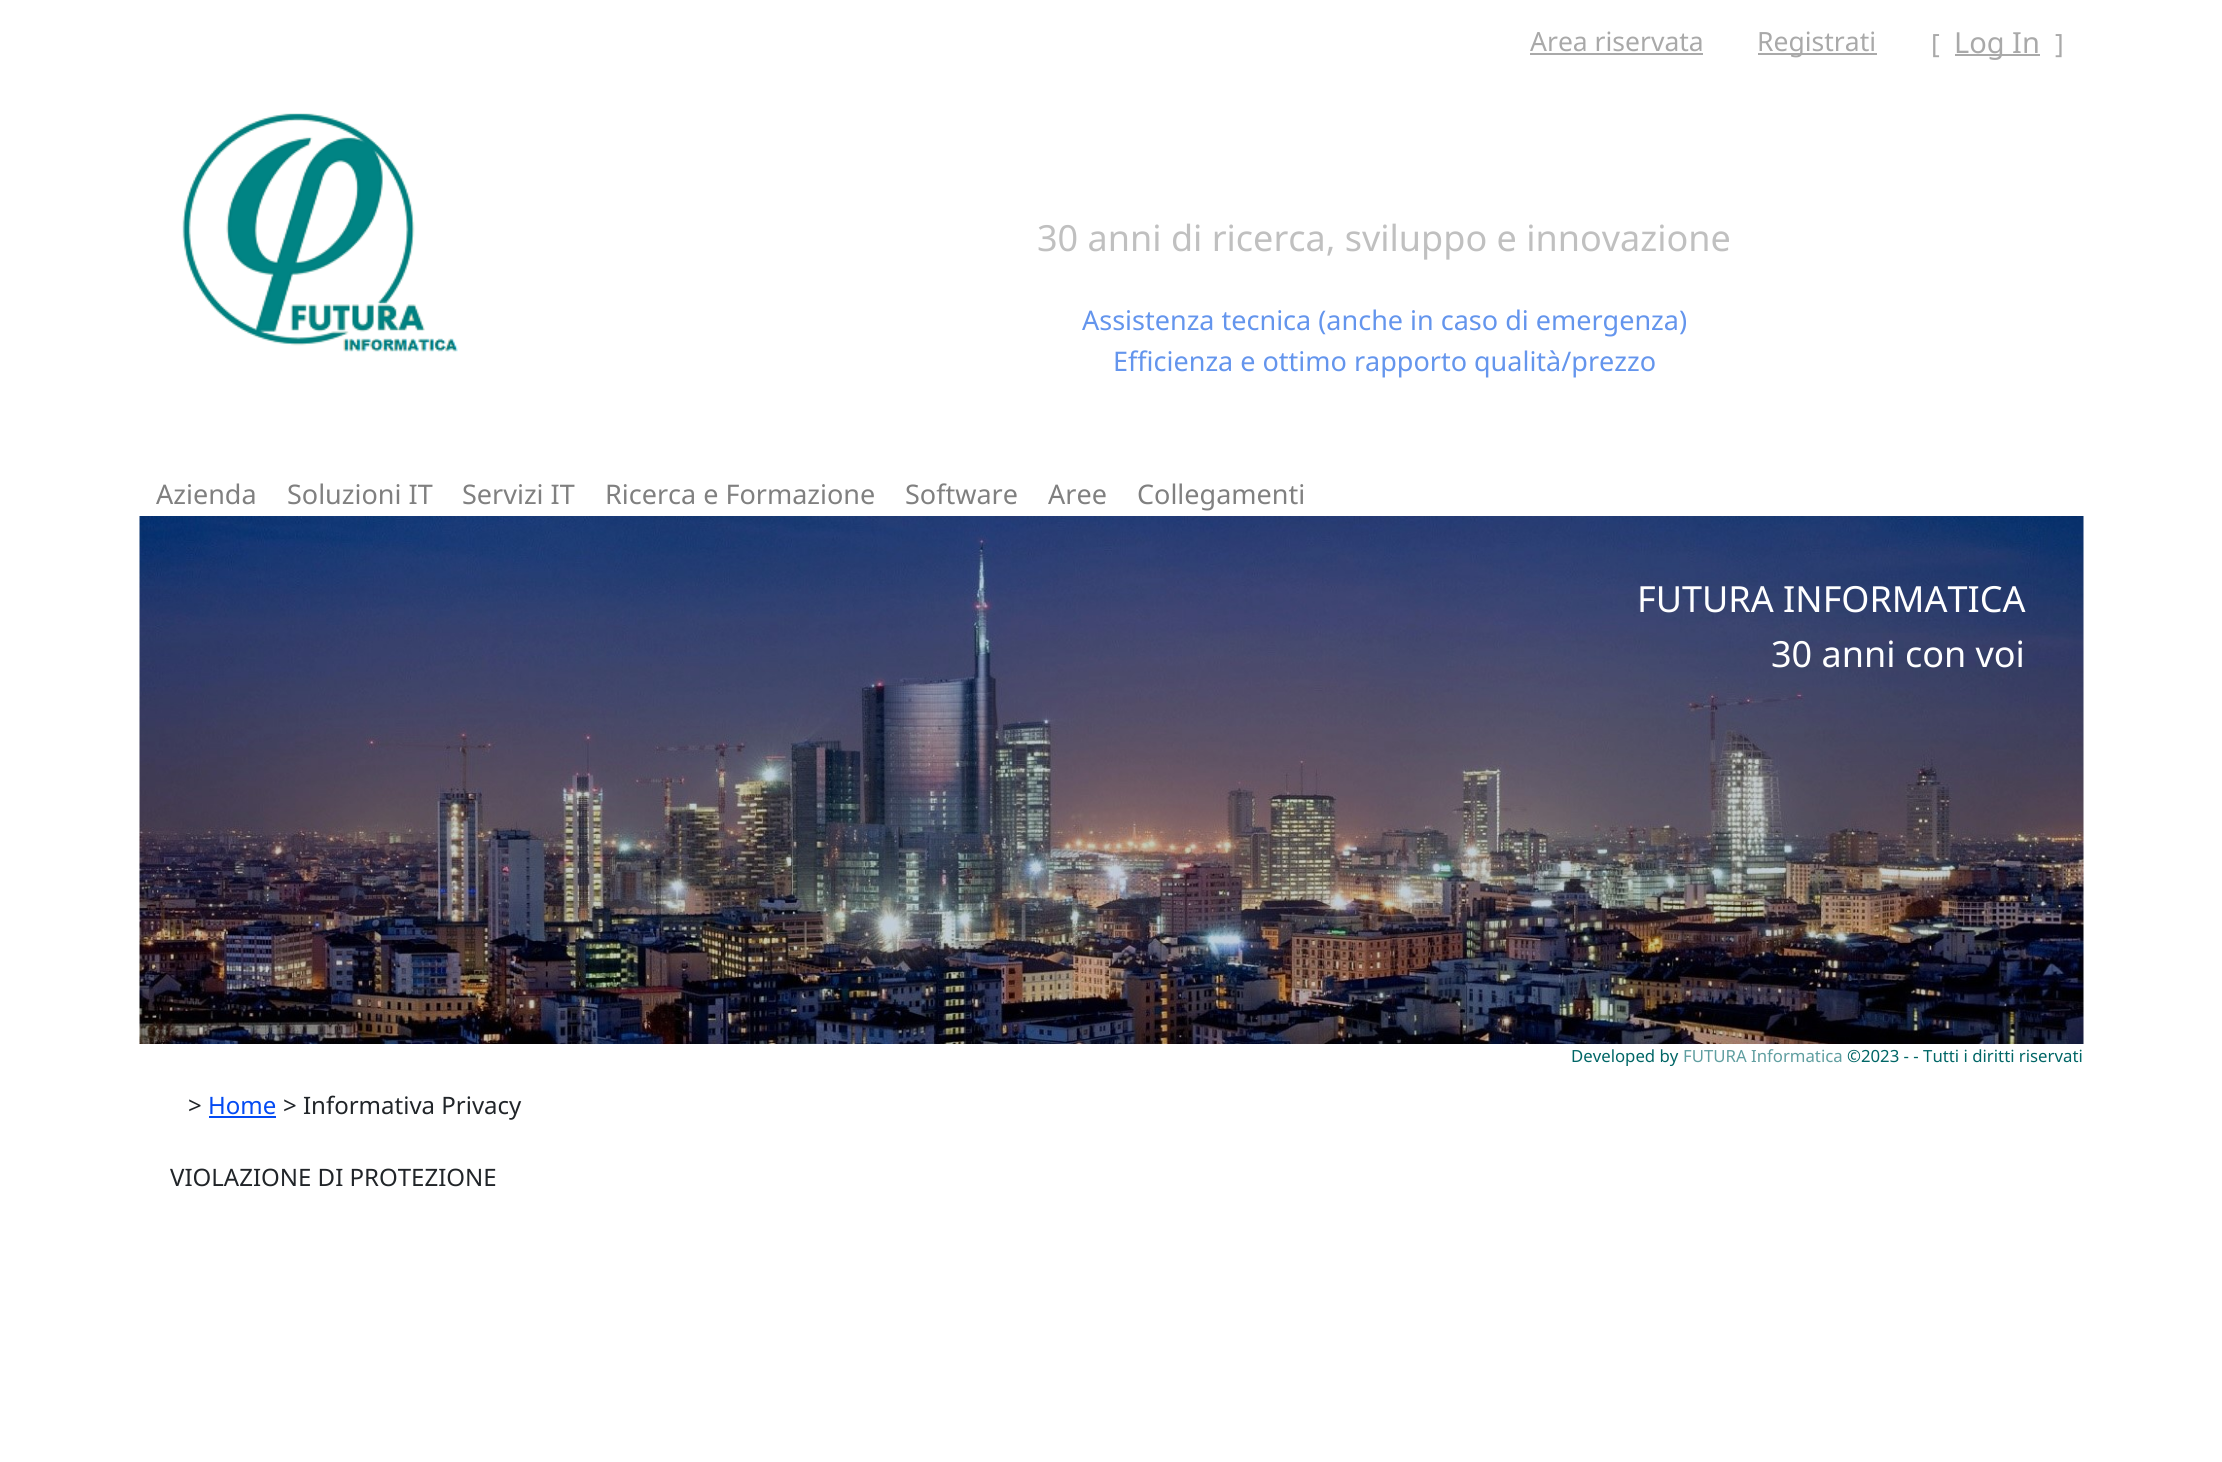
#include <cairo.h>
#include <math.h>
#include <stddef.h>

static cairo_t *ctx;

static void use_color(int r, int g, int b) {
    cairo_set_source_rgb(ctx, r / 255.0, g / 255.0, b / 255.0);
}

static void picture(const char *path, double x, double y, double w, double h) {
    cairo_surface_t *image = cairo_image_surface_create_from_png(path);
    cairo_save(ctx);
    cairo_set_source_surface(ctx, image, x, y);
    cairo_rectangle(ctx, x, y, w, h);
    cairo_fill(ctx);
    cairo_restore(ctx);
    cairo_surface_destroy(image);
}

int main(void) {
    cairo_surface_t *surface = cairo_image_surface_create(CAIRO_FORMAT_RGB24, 2222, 1462);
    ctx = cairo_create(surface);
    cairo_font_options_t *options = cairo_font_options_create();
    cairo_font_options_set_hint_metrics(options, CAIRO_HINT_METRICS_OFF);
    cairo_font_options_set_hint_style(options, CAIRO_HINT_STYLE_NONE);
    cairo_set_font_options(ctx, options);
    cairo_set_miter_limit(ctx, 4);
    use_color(255, 255, 255);
    cairo_paint(ctx);
    picture("img1.png", 182, 113, 276, 239);
    cairo_select_font_face(ctx, "Noto Sans", CAIRO_FONT_SLANT_NORMAL, CAIRO_FONT_WEIGHT_NORMAL);
    cairo_set_font_size(ctx, 26.5);
    use_color(169, 169, 169);
    cairo_move_to(ctx, 1530, 51);
    cairo_show_text(ctx, "Area riservata");
    cairo_rectangle(ctx, 1530, 53, 173, 2);
    cairo_fill(ctx);
    cairo_rectangle(ctx, 1758, 53, 119, 2);
    cairo_fill(ctx);
    cairo_move_to(ctx, 1757, 51);
    cairo_show_text(ctx, "Registrati");
    cairo_move_to(ctx, 1931, 53);
    cairo_show_text(ctx, "[");
    cairo_rectangle(ctx, 1955, 54, 85, 2);
    cairo_fill(ctx);
    cairo_set_font_size(ctx, 29);
    cairo_move_to(ctx, 1954, 53);
    cairo_show_text(ctx, "Log In");
    cairo_set_font_size(ctx, 26.5);
    cairo_move_to(ctx, 2055, 53);
    cairo_show_text(ctx, "]");
    cairo_set_font_size(ctx, 36);
    use_color(192, 192, 192);
    cairo_move_to(ctx, 1037, 251);
    cairo_show_text(ctx, "30 anni di ricerca, sviluppo e innovazione");
    cairo_set_font_size(ctx, 27);
    use_color(100, 149, 237);
    cairo_move_to(ctx, 1082, 330);
    cairo_show_text(ctx, "Assistenza tecnica (anche in caso di emergenza)");
    cairo_move_to(ctx, 1113, 371);
    cairo_show_text(ctx, "Efficienza e ottimo rapporto qualità/prezzo");
    use_color(128, 128, 128);
    cairo_move_to(ctx, 156, 504);
    cairo_show_text(ctx, "Azienda");
    cairo_move_to(ctx, 287, 504);
    cairo_show_text(ctx, "Soluzioni IT");
    cairo_move_to(ctx, 462, 504);
    cairo_show_text(ctx, "Servizi IT");
    cairo_move_to(ctx, 605, 504);
    cairo_show_text(ctx, "Ricerca e Formazione");
    cairo_move_to(ctx, 905, 504);
    cairo_show_text(ctx, "Software");
    cairo_move_to(ctx, 1048, 504);
    cairo_show_text(ctx, "Aree");
    cairo_move_to(ctx, 1137, 504);
    cairo_show_text(ctx, "Collegamenti");
    picture("img2.png", 139, 516, 1945, 528);
    cairo_set_font_size(ctx, 36);
    use_color(255, 255, 255);
    cairo_move_to(ctx, 1637, 612);
    cairo_show_text(ctx, "FUTURA INFORMATICA");
    cairo_move_to(ctx, 1771, 667);
    cairo_show_text(ctx, "30 anni con voi");
    cairo_set_font_size(ctx, 16.75);
    use_color(0, 102, 102);
    cairo_move_to(ctx, 1571, 1062);
    cairo_show_text(ctx, "Developed by");
    use_color(95, 158, 160);
    cairo_move_to(ctx, 1683, 1062);
    cairo_show_text(ctx, "FUTURA Informatica");
    use_color(0, 102, 102);
    cairo_move_to(ctx, 1847, 1062);
    cairo_show_text(ctx, "©2023 - - Tutti i diritti riservati");
    cairo_set_font_size(ctx, 24);
    use_color(33, 37, 41);
    cairo_move_to(ctx, 188, 1114);
    cairo_show_text(ctx, ">");
    use_color(3, 74, 243);
    cairo_move_to(ctx, 208, 1114);
    cairo_show_text(ctx, "Home");
    cairo_rectangle(ctx, 209, 1116, 67, 2);
    cairo_fill(ctx);
    use_color(33, 37, 41);
    cairo_move_to(ctx, 283, 1114);
    cairo_show_text(ctx, "> Informativa Privacy");
    cairo_move_to(ctx, 170, 1186);
    cairo_show_text(ctx, "VIOLAZIONE DI PROTEZIONE");
    cairo_surface_write_to_png(surface, "result.png");
    cairo_font_options_destroy(options);
    cairo_destroy(ctx);
    cairo_surface_destroy(surface);
    return 0;
}
